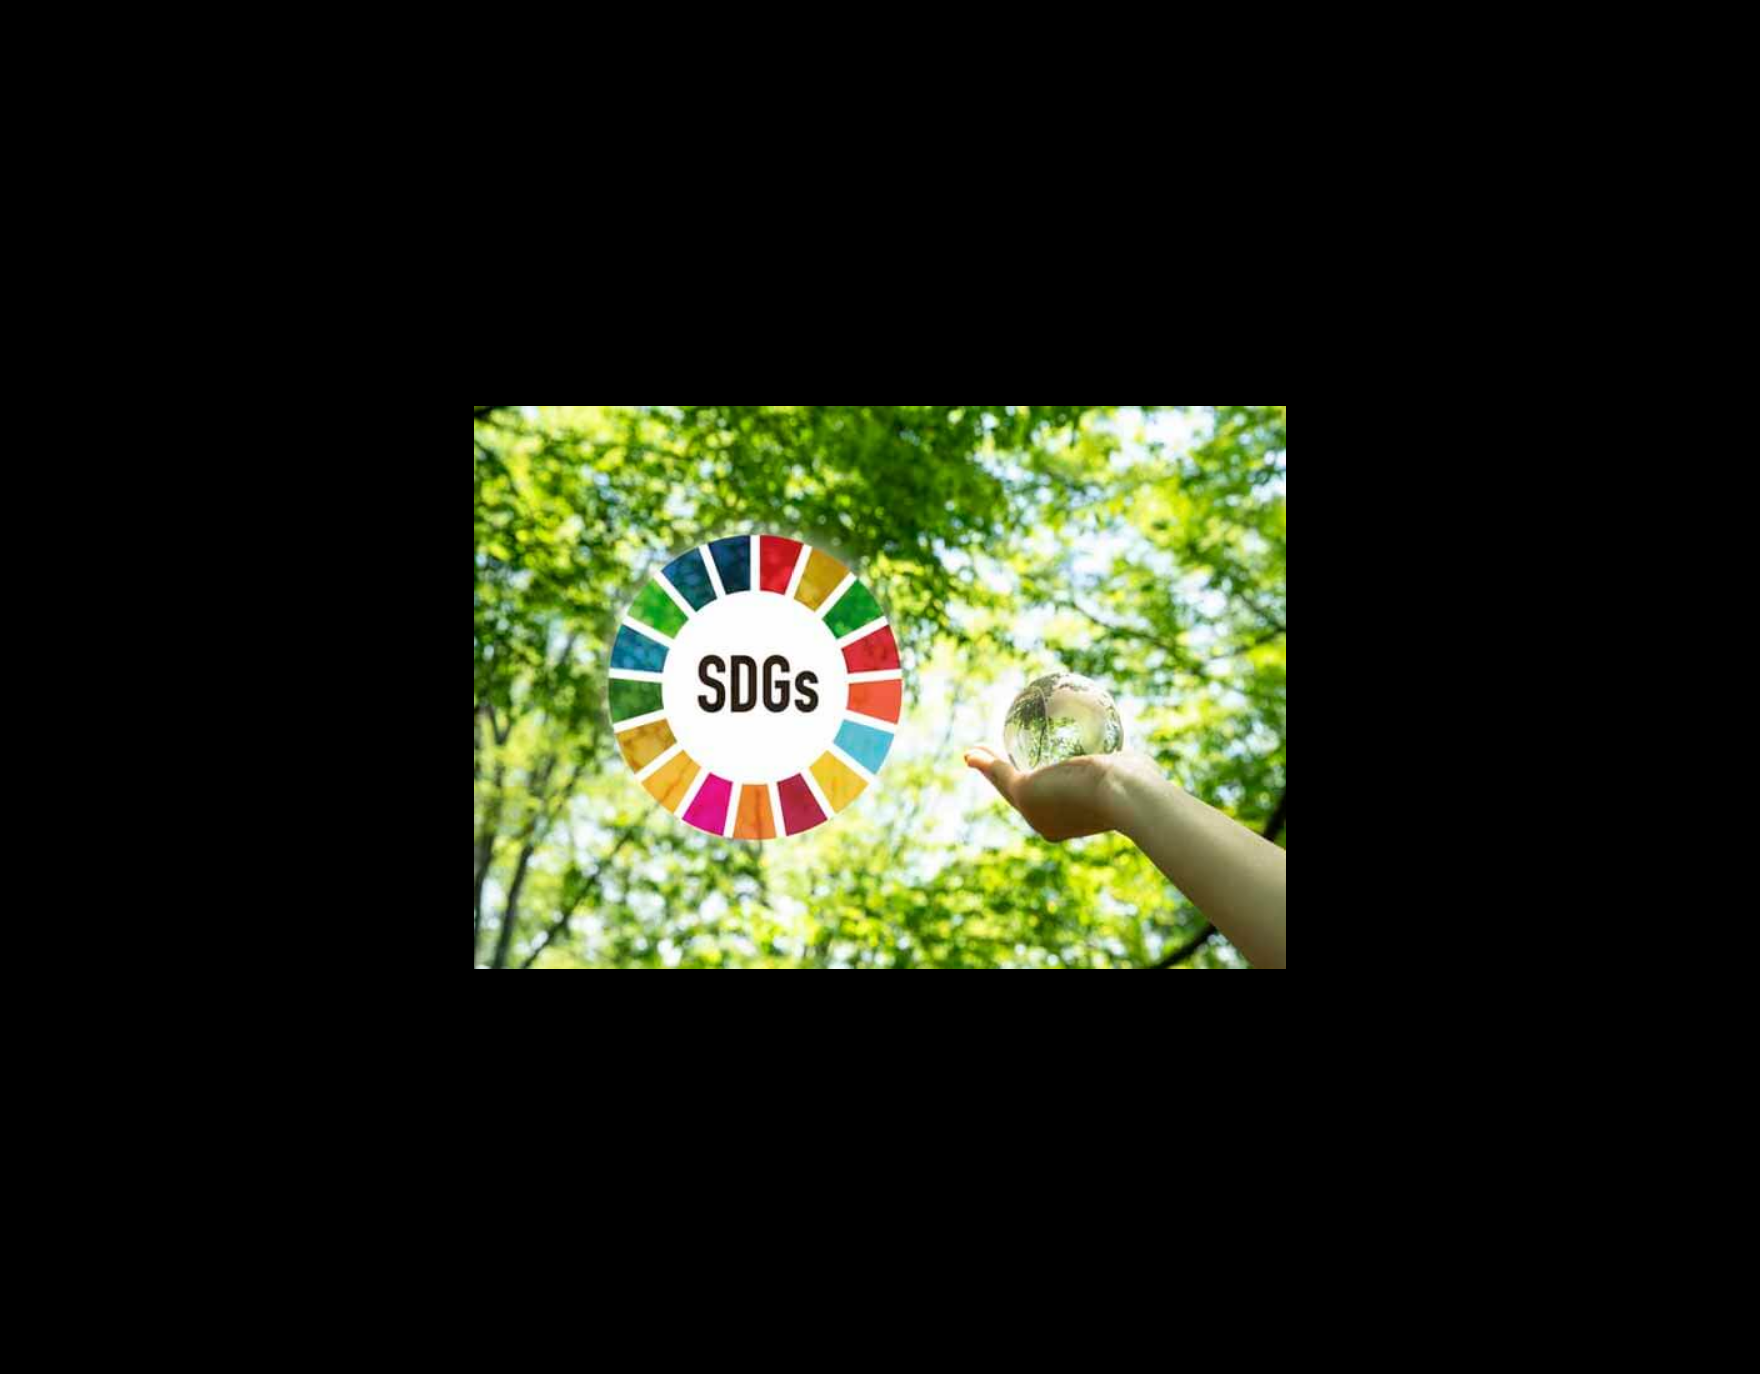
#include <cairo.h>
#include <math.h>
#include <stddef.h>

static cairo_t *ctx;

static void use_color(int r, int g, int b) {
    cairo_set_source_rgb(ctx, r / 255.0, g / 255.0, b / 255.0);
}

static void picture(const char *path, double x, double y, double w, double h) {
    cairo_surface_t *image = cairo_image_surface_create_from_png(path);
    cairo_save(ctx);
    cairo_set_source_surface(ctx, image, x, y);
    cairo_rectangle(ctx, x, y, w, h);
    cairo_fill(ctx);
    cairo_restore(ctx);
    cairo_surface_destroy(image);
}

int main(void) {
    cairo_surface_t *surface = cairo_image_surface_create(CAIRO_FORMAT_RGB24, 1760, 1374);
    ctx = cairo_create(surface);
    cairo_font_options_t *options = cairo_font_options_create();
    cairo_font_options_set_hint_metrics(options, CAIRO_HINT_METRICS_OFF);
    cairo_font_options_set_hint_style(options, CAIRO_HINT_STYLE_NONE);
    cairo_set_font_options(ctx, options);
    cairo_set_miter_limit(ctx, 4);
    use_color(0, 0, 0);
    cairo_paint(ctx);
    picture("img1.png", 474, 406, 812, 563);
    cairo_surface_write_to_png(surface, "result.png");
    cairo_font_options_destroy(options);
    cairo_destroy(ctx);
    cairo_surface_destroy(surface);
    return 0;
}
